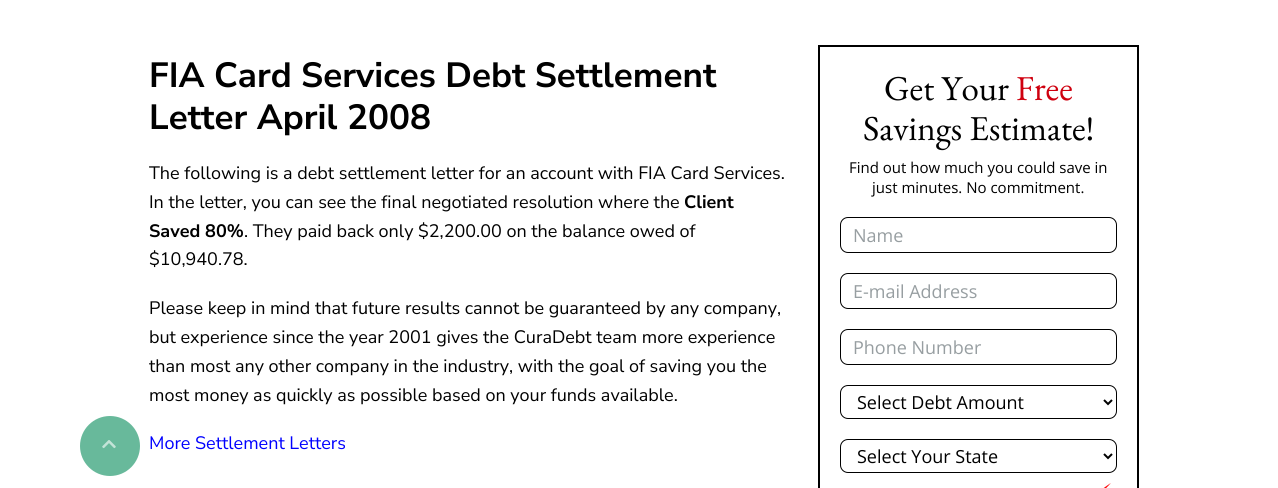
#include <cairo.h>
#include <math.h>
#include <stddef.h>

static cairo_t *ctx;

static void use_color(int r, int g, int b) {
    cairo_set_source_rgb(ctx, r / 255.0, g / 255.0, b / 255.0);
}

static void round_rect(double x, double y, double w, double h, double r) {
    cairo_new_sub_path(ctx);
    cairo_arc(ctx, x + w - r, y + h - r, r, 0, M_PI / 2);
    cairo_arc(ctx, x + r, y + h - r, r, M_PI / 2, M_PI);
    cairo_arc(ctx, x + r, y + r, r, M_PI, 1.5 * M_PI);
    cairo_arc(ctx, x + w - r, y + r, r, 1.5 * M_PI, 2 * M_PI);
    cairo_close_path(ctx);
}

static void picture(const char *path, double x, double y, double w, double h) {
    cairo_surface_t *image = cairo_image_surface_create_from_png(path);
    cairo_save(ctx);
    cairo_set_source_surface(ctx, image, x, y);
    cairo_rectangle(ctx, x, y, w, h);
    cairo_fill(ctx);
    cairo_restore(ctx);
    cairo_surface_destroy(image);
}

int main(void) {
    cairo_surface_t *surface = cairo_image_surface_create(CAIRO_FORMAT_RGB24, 1278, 488);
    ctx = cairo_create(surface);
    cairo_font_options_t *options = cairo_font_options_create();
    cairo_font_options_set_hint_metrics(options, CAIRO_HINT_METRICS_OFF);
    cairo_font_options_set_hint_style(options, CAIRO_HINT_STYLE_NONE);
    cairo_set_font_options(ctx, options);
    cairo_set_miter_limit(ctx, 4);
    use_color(255, 255, 255);
    cairo_paint(ctx);
    use_color(104, 185, 155);
    cairo_arc(ctx, 110, 446, 30, 0, 2 * M_PI);
    cairo_fill(ctx);
    picture("img1.png", 102, 440, 14, 9);
    cairo_select_font_face(ctx, "Nunito Sans", CAIRO_FONT_SLANT_NORMAL, CAIRO_FONT_WEIGHT_BOLD);
    cairo_set_font_size(ctx, 35);
    use_color(0, 0, 0);
    cairo_move_to(ctx, 149, 87);
    cairo_show_text(ctx, "FIA Card Services Debt Settlement");
    cairo_move_to(ctx, 149, 129);
    cairo_show_text(ctx, "Letter April 2008");
    cairo_select_font_face(ctx, "Nunito Sans", CAIRO_FONT_SLANT_NORMAL, CAIRO_FONT_WEIGHT_NORMAL);
    cairo_set_font_size(ctx, 18);
    cairo_move_to(ctx, 149, 179);
    cairo_show_text(ctx, "The following is a debt settlement letter for an account with FIA Card Services.");
    cairo_move_to(ctx, 149, 208);
    cairo_show_text(ctx, "In the letter, you can see the final negotiated resolution where the");
    cairo_select_font_face(ctx, "Nunito Sans", CAIRO_FONT_SLANT_NORMAL, CAIRO_FONT_WEIGHT_BOLD);
    cairo_move_to(ctx, 684, 208);
    cairo_show_text(ctx, "Client");
    cairo_move_to(ctx, 149, 237);
    cairo_show_text(ctx, "Saved 80%");
    cairo_select_font_face(ctx, "Nunito Sans", CAIRO_FONT_SLANT_NORMAL, CAIRO_FONT_WEIGHT_NORMAL);
    cairo_move_to(ctx, 244, 237);
    cairo_show_text(ctx, ". They paid back only $2,200.00 on the balance owed of");
    cairo_move_to(ctx, 149, 265);
    cairo_show_text(ctx, "$10,940.78.");
    cairo_move_to(ctx, 149, 314);
    cairo_show_text(ctx, "Please keep in mind that future results cannot be guaranteed by any company,");
    cairo_move_to(ctx, 149, 343);
    cairo_show_text(ctx, "but experience since the year 2001 gives the CuraDebt team more experience");
    cairo_move_to(ctx, 149, 372);
    cairo_show_text(ctx, "than most any other company in the industry, with the goal of saving you the");
    cairo_move_to(ctx, 149, 401);
    cairo_show_text(ctx, "most money as quickly as possible based on your funds available.");
    use_color(0, 0, 255);
    cairo_move_to(ctx, 149, 449);
    cairo_show_text(ctx, "More Settlement Letters");
    cairo_rectangle(ctx, 819, 46, 319, 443);
    use_color(0, 0, 0);
    cairo_stroke(ctx);
    cairo_select_font_face(ctx, "EB Garamond", CAIRO_FONT_SLANT_NORMAL, CAIRO_FONT_WEIGHT_NORMAL);
    cairo_set_font_size(ctx, 35);
    cairo_move_to(ctx, 884, 100);
    cairo_show_text(ctx, "Get Your");
    use_color(207, 0, 15);
    cairo_move_to(ctx, 1016, 100);
    cairo_show_text(ctx, "Free");
    use_color(0, 0, 0);
    cairo_move_to(ctx, 863, 140);
    cairo_show_text(ctx, "Savings Estimate!");
    cairo_select_font_face(ctx, "Open Sans", CAIRO_FONT_SLANT_NORMAL, CAIRO_FONT_WEIGHT_NORMAL);
    cairo_set_font_size(ctx, 15);
    cairo_move_to(ctx, 849, 173);
    cairo_show_text(ctx, "Find out how much you could save in");
    cairo_move_to(ctx, 872, 193);
    cairo_show_text(ctx, "just minutes. No commitment.");
    round_rect(840.5, 217.5, 276, 35, 7.5);
    cairo_set_line_width(ctx, 1);
    cairo_stroke(ctx);
    cairo_set_font_size(ctx, 18);
    use_color(151, 158, 161);
    cairo_move_to(ctx, 853, 242);
    cairo_show_text(ctx, "Name");
    round_rect(840.5, 273.5, 276, 35, 7.5);
    use_color(0, 0, 0);
    cairo_stroke(ctx);
    use_color(151, 158, 161);
    cairo_move_to(ctx, 853, 298);
    cairo_show_text(ctx, "E-mail Address");
    round_rect(840.5, 329.5, 276, 35, 7.5);
    use_color(0, 0, 0);
    cairo_stroke(ctx);
    use_color(151, 158, 161);
    cairo_move_to(ctx, 853, 354);
    cairo_show_text(ctx, "Phone Number");
    round_rect(840.5, 385.5, 276, 33, 7.5);
    use_color(0, 0, 0);
    cairo_stroke(ctx);
    cairo_new_path(ctx);
    cairo_move_to(ctx, 1104, 400);
    cairo_line_to(ctx, 1108, 404);
    cairo_line_to(ctx, 1112, 400);
    cairo_set_line_width(ctx, 2);
    cairo_stroke(ctx);
    cairo_move_to(ctx, 857, 409);
    cairo_show_text(ctx, "Select Debt Amount");
    round_rect(840.5, 439.5, 276, 33, 7.5);
    cairo_set_line_width(ctx, 1);
    cairo_stroke(ctx);
    cairo_new_path(ctx);
    cairo_move_to(ctx, 1104, 454);
    cairo_line_to(ctx, 1108, 458);
    cairo_line_to(ctx, 1112, 454);
    cairo_set_line_width(ctx, 2);
    cairo_stroke(ctx);
    cairo_move_to(ctx, 857, 463);
    cairo_show_text(ctx, "Select Your State");
    picture("img2.png", 1101, 483, 10, 5);
    cairo_surface_write_to_png(surface, "result.png");
    cairo_font_options_destroy(options);
    cairo_destroy(ctx);
    cairo_surface_destroy(surface);
    return 0;
}
